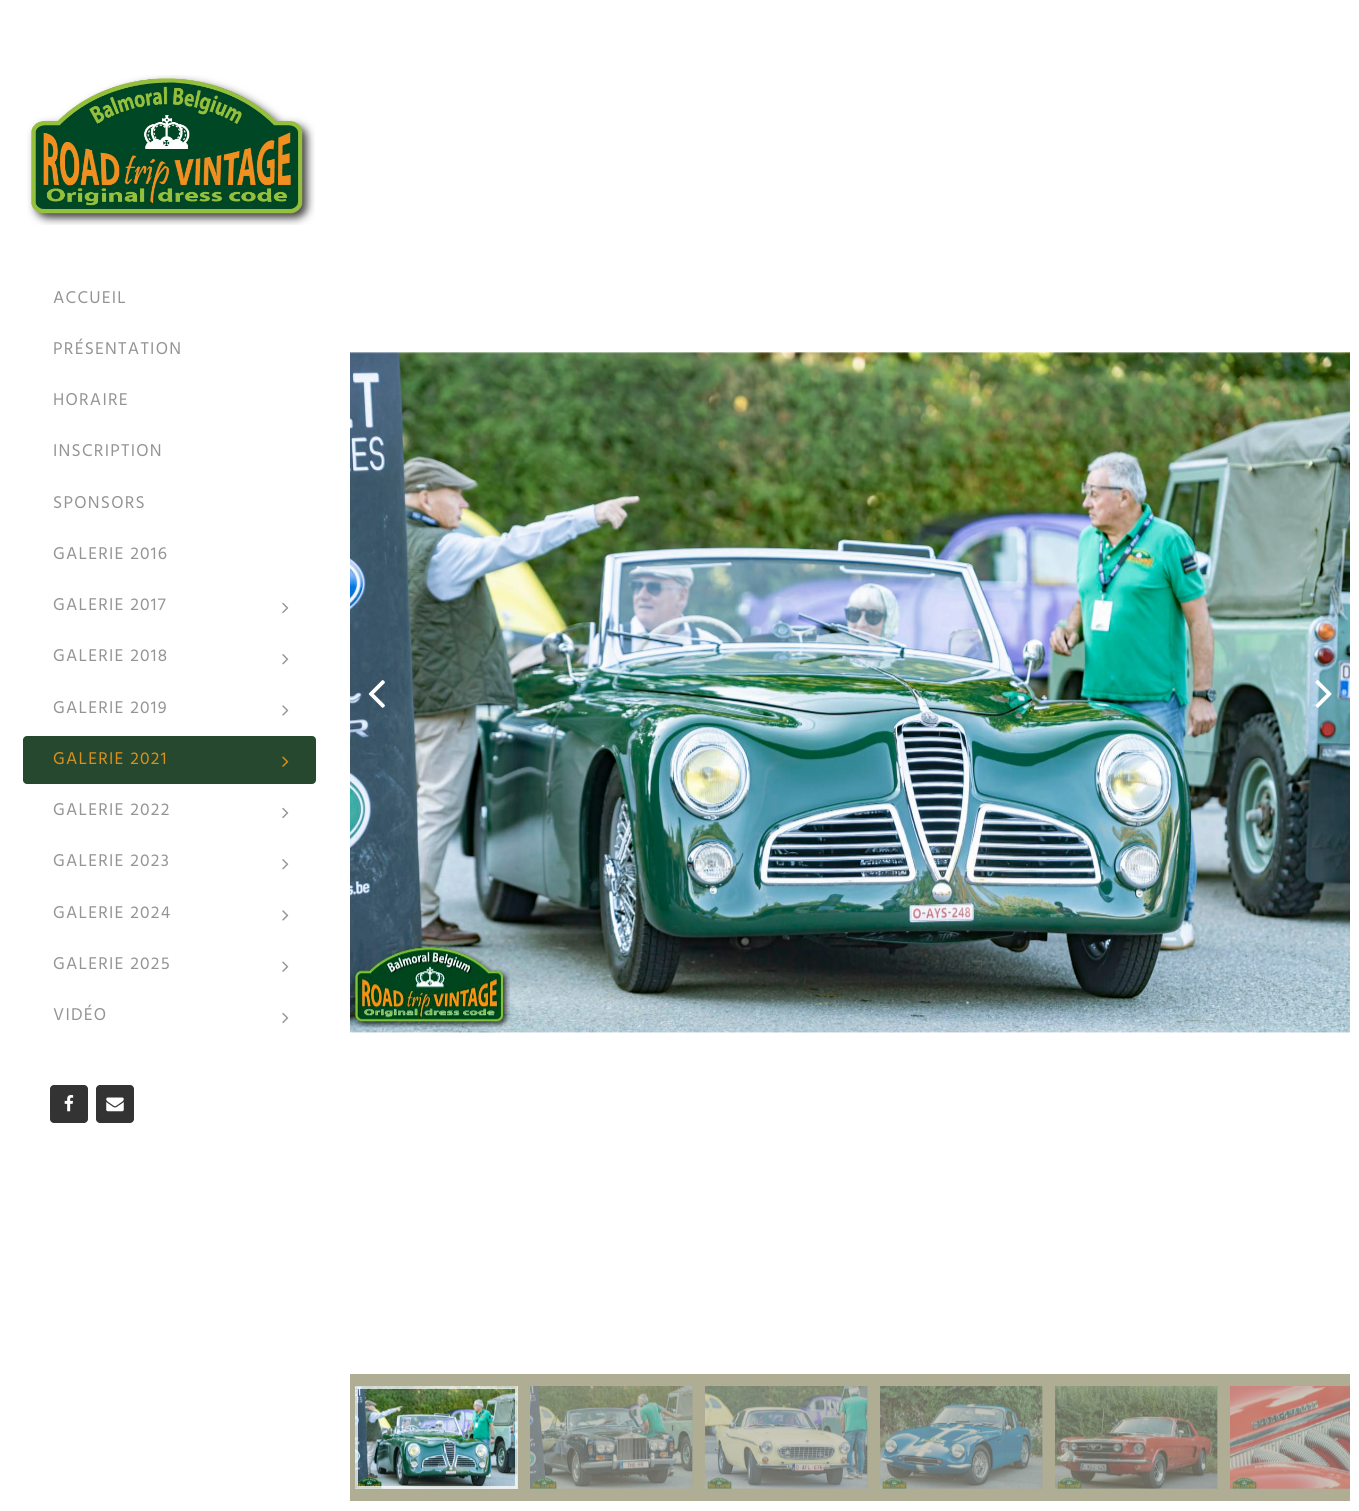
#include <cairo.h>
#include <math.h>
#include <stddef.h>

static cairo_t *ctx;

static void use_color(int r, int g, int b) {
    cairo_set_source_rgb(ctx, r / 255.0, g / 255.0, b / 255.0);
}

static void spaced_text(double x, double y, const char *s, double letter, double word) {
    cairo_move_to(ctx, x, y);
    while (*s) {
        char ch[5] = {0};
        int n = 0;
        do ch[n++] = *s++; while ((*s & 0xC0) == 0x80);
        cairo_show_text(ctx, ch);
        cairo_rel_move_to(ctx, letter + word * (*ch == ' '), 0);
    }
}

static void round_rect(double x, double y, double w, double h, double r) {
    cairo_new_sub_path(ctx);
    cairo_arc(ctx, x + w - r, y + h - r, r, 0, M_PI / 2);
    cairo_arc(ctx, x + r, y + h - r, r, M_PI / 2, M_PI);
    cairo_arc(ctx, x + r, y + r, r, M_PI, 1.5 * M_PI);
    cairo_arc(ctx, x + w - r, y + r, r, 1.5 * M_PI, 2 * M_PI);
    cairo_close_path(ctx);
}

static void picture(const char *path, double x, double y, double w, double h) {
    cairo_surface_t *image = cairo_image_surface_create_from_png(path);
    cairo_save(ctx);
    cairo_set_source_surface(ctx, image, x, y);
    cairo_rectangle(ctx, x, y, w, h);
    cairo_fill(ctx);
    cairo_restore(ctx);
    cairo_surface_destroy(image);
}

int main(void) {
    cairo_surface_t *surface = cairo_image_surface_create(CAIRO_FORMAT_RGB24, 1359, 1511);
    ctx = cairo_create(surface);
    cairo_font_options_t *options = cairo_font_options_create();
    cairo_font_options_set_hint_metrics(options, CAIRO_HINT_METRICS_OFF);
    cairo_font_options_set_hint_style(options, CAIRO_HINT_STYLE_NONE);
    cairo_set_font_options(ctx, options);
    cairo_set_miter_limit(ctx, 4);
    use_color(255, 255, 255);
    cairo_paint(ctx);
    picture("img1.png", 27, 75, 288, 150);
    cairo_select_font_face(ctx, "Hind", CAIRO_FONT_SLANT_NORMAL, CAIRO_FONT_WEIGHT_NORMAL);
    cairo_set_font_size(ctx, 17.5);
    use_color(148, 148, 148);
    spaced_text(53, 303, "ACCUEIL", 1.25, 0);
    spaced_text(53, 354, "PRÉSENTATION", 1.25, 0);
    spaced_text(53, 405, "HORAIRE", 1.25, 0);
    spaced_text(53, 456, "INSCRIPTION", 1.25, 0);
    spaced_text(53, 508, "SPONSORS", 1.25, 0);
    spaced_text(53, 559, "GALERIE 2016", 1.25, 0);
    spaced_text(53, 610, "GALERIE 2017", 1.25, 0);
    picture("img2.png", 282, 602, 7, 12);
    spaced_text(53, 661, "GALERIE 2018", 1.25, 0);
    picture("img3.png", 282, 654, 7, 11);
    spaced_text(53, 713, "GALERIE 2019", 1.25, 0);
    picture("img4.png", 282, 705, 7, 11);
    use_color(38, 72, 47);
    round_rect(23, 736, 293, 48, 4);
    cairo_fill(ctx);
    use_color(218, 144, 27);
    spaced_text(53, 764, "GALERIE 2021", 1.25, 0);
    picture("img5.png", 282, 756, 7, 11);
    use_color(148, 148, 148);
    spaced_text(53, 815, "GALERIE 2022", 1.25, 0);
    picture("img2.png", 282, 807, 7, 12);
    spaced_text(53, 866, "GALERIE 2023", 1.25, 0);
    picture("img3.png", 282, 859, 7, 11);
    spaced_text(53, 918, "GALERIE 2024", 1.25, 0);
    picture("img4.png", 282, 910, 7, 11);
    spaced_text(53, 969, "GALERIE 2025", 1.25, 0);
    picture("img6.png", 282, 961, 7, 11);
    spaced_text(53, 1020, "VIDÉO", 1.25, 0);
    picture("img2.png", 282, 1012, 7, 12);
    use_color(51, 51, 51);
    round_rect(50, 1085, 38, 38, 4);
    cairo_fill(ctx);
    picture("img7.png", 64, 1095, 10, 17);
    round_rect(96, 1085, 38, 38, 4);
    cairo_fill(ctx);
    picture("img8.png", 106, 1097, 18, 15);
    picture("img9.png", 350, 352, 1000, 681);
    picture("img10.png", 368, 680, 17, 28);
    picture("img11.png", 1315, 680, 17, 28);
    use_color(175, 173, 148);
    cairo_rectangle(ctx, 350, 1374, 1000, 127);
    cairo_fill(ctx);
    use_color(165, 164, 144);
    cairo_rectangle(ctx, 355, 1386, 163, 103);
    cairo_fill(ctx);
    picture("img12.png", 355, 1386, 163, 103);
    cairo_rectangle(ctx, 356.5, 1387.5, 160, 100);
    cairo_set_source_rgba(ctx, 1, 1, 1, 0.75);
    cairo_set_line_width(ctx, 3);
    cairo_stroke(ctx);
    use_color(171, 169, 146);
    cairo_rectangle(ctx, 530, 1386, 163, 103);
    cairo_fill(ctx);
    picture("img13.png", 530, 1386, 163, 103);
    cairo_rectangle(ctx, 705, 1386, 163, 103);
    cairo_fill(ctx);
    picture("img14.png", 705, 1386, 163, 103);
    cairo_rectangle(ctx, 880, 1386, 163, 103);
    cairo_fill(ctx);
    picture("img15.png", 880, 1386, 163, 103);
    cairo_rectangle(ctx, 1055, 1386, 163, 103);
    cairo_fill(ctx);
    picture("img16.png", 1055, 1386, 163, 103);
    cairo_rectangle(ctx, 1230, 1386, 120, 103);
    cairo_fill(ctx);
    picture("img17.png", 1230, 1386, 120, 103);
    cairo_surface_write_to_png(surface, "result.png");
    cairo_font_options_destroy(options);
    cairo_destroy(ctx);
    cairo_surface_destroy(surface);
    return 0;
}
